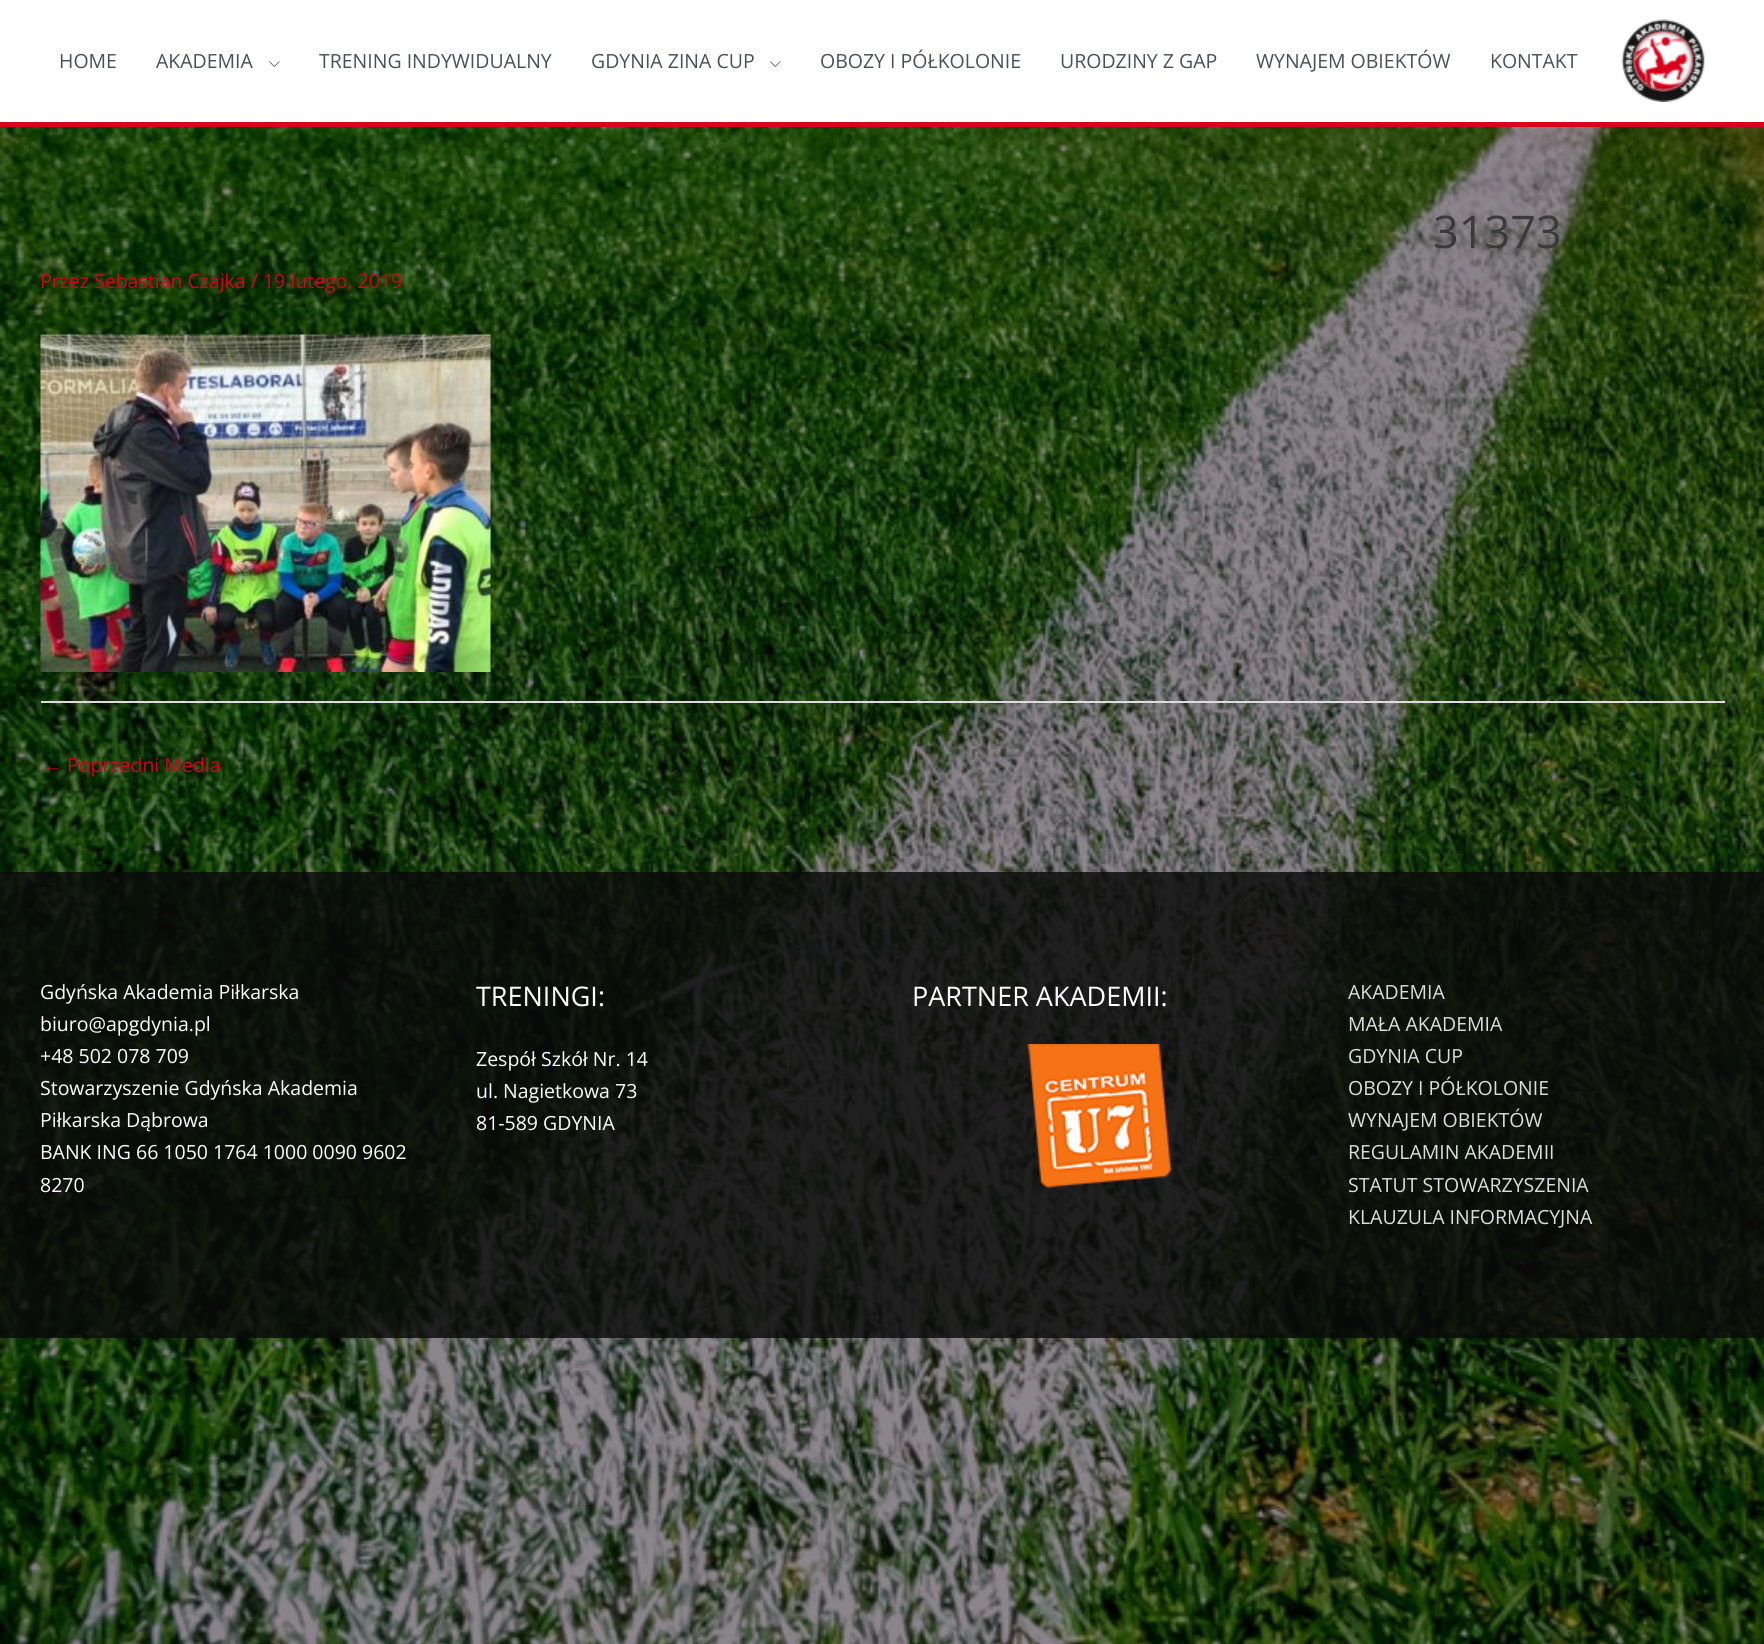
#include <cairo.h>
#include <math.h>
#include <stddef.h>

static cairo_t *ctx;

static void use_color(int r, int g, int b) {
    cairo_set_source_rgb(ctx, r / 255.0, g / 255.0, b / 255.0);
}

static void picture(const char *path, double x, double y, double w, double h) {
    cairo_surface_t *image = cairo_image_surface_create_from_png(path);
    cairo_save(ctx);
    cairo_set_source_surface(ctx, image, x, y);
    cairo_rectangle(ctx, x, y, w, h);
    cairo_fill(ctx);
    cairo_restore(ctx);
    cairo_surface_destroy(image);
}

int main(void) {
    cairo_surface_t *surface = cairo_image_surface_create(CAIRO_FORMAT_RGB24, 1764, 1644);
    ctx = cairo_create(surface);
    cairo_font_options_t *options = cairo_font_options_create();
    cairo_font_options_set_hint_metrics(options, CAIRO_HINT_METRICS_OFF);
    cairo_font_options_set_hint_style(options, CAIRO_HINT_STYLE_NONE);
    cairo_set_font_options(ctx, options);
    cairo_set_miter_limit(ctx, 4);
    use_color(255, 255, 255);
    cairo_paint(ctx);
    picture("img1.png", 0, 127, 1764, 1517);
    use_color(216, 0, 26);
    cairo_rectangle(ctx, 0, 122, 1764, 5);
    cairo_fill(ctx);
    cairo_select_font_face(ctx, "Open Sans", CAIRO_FONT_SLANT_NORMAL, CAIRO_FONT_WEIGHT_NORMAL);
    cairo_set_font_size(ctx, 19.5);
    use_color(75, 79, 88);
    cairo_move_to(ctx, 59, 68);
    cairo_show_text(ctx, "HOME");
    cairo_move_to(ctx, 156, 68);
    cairo_show_text(ctx, "AKADEMIA");
    picture("img2.png", 269, 61, 11, 6);
    cairo_move_to(ctx, 319, 68);
    cairo_show_text(ctx, "TRENING INDYWIDUALNY");
    cairo_move_to(ctx, 591, 68);
    cairo_show_text(ctx, "GDYNIA ZINA CUP");
    picture("img2.png", 770, 61, 11, 6);
    cairo_move_to(ctx, 820, 68);
    cairo_show_text(ctx, "OBOZY I PÓŁKOLONIE");
    cairo_move_to(ctx, 1060, 68);
    cairo_show_text(ctx, "URODZINY Z GAP");
    cairo_move_to(ctx, 1256, 68);
    cairo_show_text(ctx, "WYNAJEM OBIEKTÓW");
    cairo_move_to(ctx, 1490, 68);
    cairo_show_text(ctx, "KONTAKT");
    picture("img3.png", 1621, 19, 85, 83);
    cairo_set_font_size(ctx, 45);
    use_color(58, 58, 58);
    cairo_move_to(ctx, 1433, 248);
    cairo_show_text(ctx, "31373");
    cairo_set_font_size(ctx, 19.5);
    use_color(216, 0, 26);
    cairo_move_to(ctx, 40, 288);
    cairo_show_text(ctx, "Przez Sebastian Czajka / 19 lutego, 2019");
    picture("img4.png", 40, 334, 451, 338);
    use_color(221, 221, 221);
    cairo_rectangle(ctx, 41, 701, 1684, 2);
    cairo_fill(ctx);
    cairo_select_font_face(ctx, "Liberation Sans", CAIRO_FONT_SLANT_NORMAL, CAIRO_FONT_WEIGHT_NORMAL);
    use_color(216, 0, 26);
    cairo_move_to(ctx, 43, 772);
    cairo_show_text(ctx, "←");
    cairo_select_font_face(ctx, "Open Sans", CAIRO_FONT_SLANT_NORMAL, CAIRO_FONT_WEIGHT_NORMAL);
    cairo_move_to(ctx, 67, 772);
    cairo_show_text(ctx, "Poprzedni Media");
    cairo_set_source_rgba(ctx, 0.039, 0.039, 0.039, 0.82);
    cairo_rectangle(ctx, 0, 872, 1764, 466);
    cairo_fill(ctx);
    use_color(255, 255, 255);
    cairo_move_to(ctx, 40, 999);
    cairo_show_text(ctx, "Gdyńska Akademia Piłkarska");
    cairo_move_to(ctx, 40, 1031);
    cairo_show_text(ctx, "biuro@apgdynia.pl");
    cairo_move_to(ctx, 40, 1063);
    cairo_show_text(ctx, "+48 502 078 709");
    cairo_move_to(ctx, 40, 1095);
    cairo_show_text(ctx, "Stowarzyszenie Gdyńska Akademia");
    cairo_move_to(ctx, 40, 1127);
    cairo_show_text(ctx, "Piłkarska Dąbrowa");
    cairo_move_to(ctx, 40, 1159);
    cairo_show_text(ctx, "BANK ING 66 1050 1764 1000 0090 9602");
    cairo_move_to(ctx, 40, 1192);
    cairo_show_text(ctx, "8270");
    cairo_set_font_size(ctx, 27);
    cairo_move_to(ctx, 476, 1006);
    cairo_show_text(ctx, "TRENINGI:");
    cairo_set_font_size(ctx, 19.5);
    cairo_move_to(ctx, 476, 1066);
    cairo_show_text(ctx, "Zespół Szkół Nr. 14");
    cairo_move_to(ctx, 476, 1098);
    cairo_show_text(ctx, "ul. Nagietkowa 73");
    cairo_move_to(ctx, 476, 1130);
    cairo_show_text(ctx, "81-589 GDYNIA");
    cairo_set_font_size(ctx, 27);
    cairo_move_to(ctx, 912, 1006);
    cairo_show_text(ctx, "PARTNER AKADEMII:");
    picture("img5.png", 1027, 1044, 145, 145);
    cairo_set_font_size(ctx, 19.5);
    use_color(221, 221, 221);
    cairo_move_to(ctx, 1348, 999);
    cairo_show_text(ctx, "AKADEMIA");
    cairo_move_to(ctx, 1348, 1031);
    cairo_show_text(ctx, "MAŁA AKADEMIA");
    cairo_move_to(ctx, 1348, 1063);
    cairo_show_text(ctx, "GDYNIA CUP");
    cairo_move_to(ctx, 1348, 1095);
    cairo_show_text(ctx, "OBOZY I PÓŁKOLONIE");
    cairo_move_to(ctx, 1348, 1127);
    cairo_show_text(ctx, "WYNAJEM OBIEKTÓW");
    cairo_move_to(ctx, 1348, 1159);
    cairo_show_text(ctx, "REGULAMIN AKADEMII");
    cairo_move_to(ctx, 1348, 1192);
    cairo_show_text(ctx, "STATUT STOWARZYSZENIA");
    cairo_move_to(ctx, 1348, 1224);
    cairo_show_text(ctx, "KLAUZULA INFORMACYJNA");
    cairo_surface_write_to_png(surface, "result.png");
    cairo_font_options_destroy(options);
    cairo_destroy(ctx);
    cairo_surface_destroy(surface);
    return 0;
}
